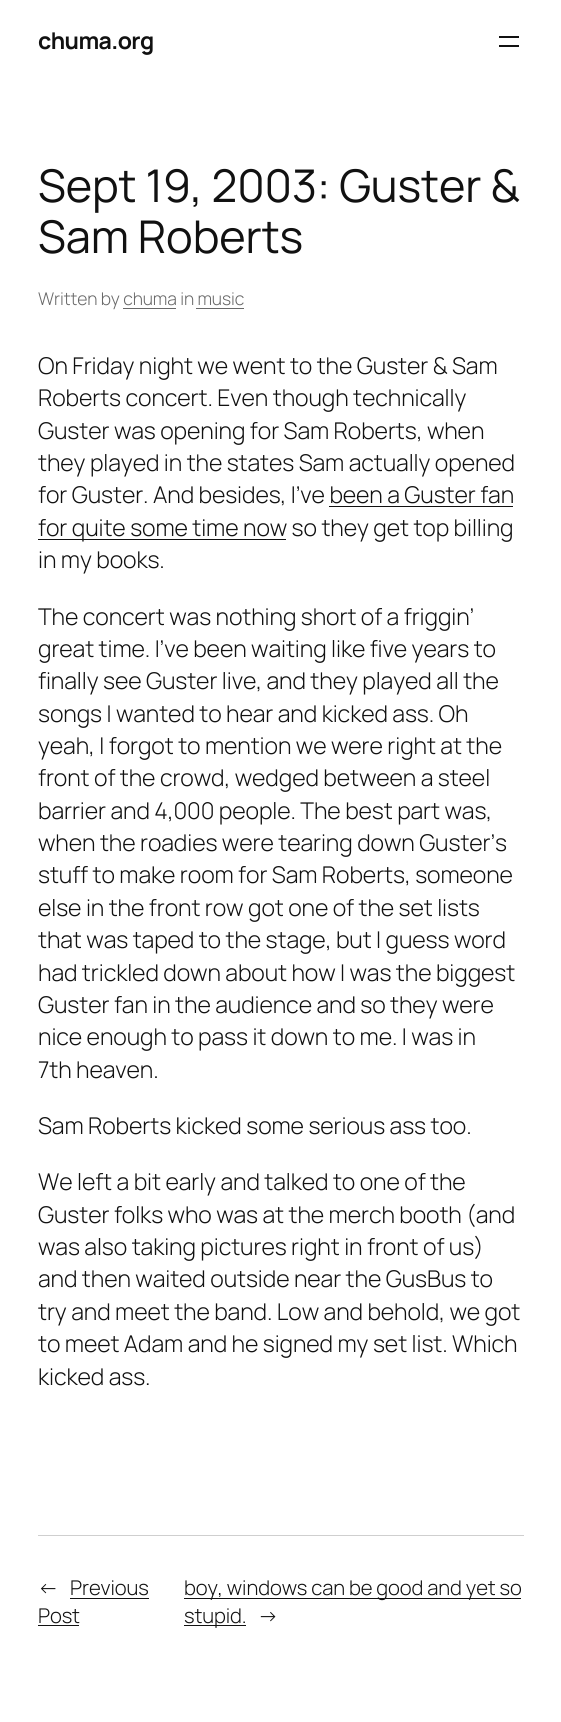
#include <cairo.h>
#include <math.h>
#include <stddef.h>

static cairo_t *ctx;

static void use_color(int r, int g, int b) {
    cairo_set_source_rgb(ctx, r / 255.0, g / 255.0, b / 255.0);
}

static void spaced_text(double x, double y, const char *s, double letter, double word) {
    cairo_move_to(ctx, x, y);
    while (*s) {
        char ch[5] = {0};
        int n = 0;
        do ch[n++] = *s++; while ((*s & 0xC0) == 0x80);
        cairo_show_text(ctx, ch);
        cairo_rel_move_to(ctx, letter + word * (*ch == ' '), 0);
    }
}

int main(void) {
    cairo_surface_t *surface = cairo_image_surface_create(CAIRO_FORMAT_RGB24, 561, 1722);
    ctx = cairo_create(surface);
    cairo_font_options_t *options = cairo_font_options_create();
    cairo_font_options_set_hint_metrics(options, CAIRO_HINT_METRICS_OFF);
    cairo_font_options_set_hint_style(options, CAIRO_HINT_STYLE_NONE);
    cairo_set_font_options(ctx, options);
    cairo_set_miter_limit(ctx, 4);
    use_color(255, 255, 255);
    cairo_paint(ctx);
    cairo_select_font_face(ctx, "Manrope", CAIRO_FONT_SLANT_NORMAL, CAIRO_FONT_WEIGHT_BOLD);
    cairo_set_font_size(ctx, 23.1);
    use_color(17, 17, 17);
    spaced_text(38, 49, "chuma.org", -0.6, 0);
    cairo_rectangle(ctx, 499, 36, 20, 2);
    cairo_fill(ctx);
    cairo_rectangle(ctx, 499, 45, 20, 2);
    cairo_fill(ctx);
    cairo_select_font_face(ctx, "Manrope", CAIRO_FONT_SLANT_NORMAL, CAIRO_FONT_WEIGHT_NORMAL);
    cairo_set_font_size(ctx, 45.1);
    spaced_text(38, 202, "Sept 19, 2003: Guster &", -0.1, 0);
    spaced_text(38, 253, "Sam Roberts", -0.1, 0);
    cairo_select_font_face(ctx, "Manrope Light", CAIRO_FONT_SLANT_NORMAL, CAIRO_FONT_WEIGHT_NORMAL);
    cairo_set_font_size(ctx, 17.5);
    use_color(104, 104, 104);
    spaced_text(38, 305, "Written by chuma in music", -0.1, 0);
    cairo_rectangle(ctx, 123, 308, 53, 1);
    cairo_fill(ctx);
    cairo_rectangle(ctx, 196, 308, 48, 1);
    cairo_fill(ctx);
    cairo_set_font_size(ctx, 23.1);
    use_color(17, 17, 17);
    spaced_text(38, 374, "On Friday night we went to the Guster & Sam", -0.1, 0);
    spaced_text(38, 406, "Roberts concert. Even though technically", -0.1, 0);
    spaced_text(38, 439, "Guster was opening for Sam Roberts, when", -0.1, 0);
    spaced_text(38, 471, "they played in the states Sam actually opened", -0.1, 0);
    spaced_text(38, 503, "for Guster. And besides, I’ve been a Guster fan", -0.1, 0);
    cairo_rectangle(ctx, 38, 539, 248, 1);
    cairo_fill(ctx);
    spaced_text(38, 536, "for quite some time now so they get top billing", -0.1, 0);
    cairo_rectangle(ctx, 329, 506, 184, 1);
    cairo_fill(ctx);
    spaced_text(38, 568, "in my books.", -0.1, 0);
    spaced_text(38, 625, "The concert was nothing short of a friggin’", -0.1, 0);
    spaced_text(38, 657, "great time. I’ve been waiting like five years to", -0.1, 0);
    spaced_text(38, 689, "finally see Guster live, and they played all the", -0.1, 0);
    spaced_text(38, 722, "songs I wanted to hear and kicked ass. Oh", -0.1, 0);
    spaced_text(38, 754, "yeah, I forgot to mention we were right at the", -0.1, 0);
    spaced_text(38, 786, "front of the crowd, wedged between a steel", -0.1, 0);
    spaced_text(38, 819, "barrier and 4,000 people. The best part was,", -0.1, 0);
    spaced_text(38, 851, "when the roadies were tearing down Guster’s", -0.1, 0);
    spaced_text(38, 883, "stuff to make room for Sam Roberts, someone", -0.1, 0);
    spaced_text(38, 916, "else in the front row got one of the set lists", -0.1, 0);
    spaced_text(38, 948, "that was taped to the stage, but I guess word", -0.1, 0);
    spaced_text(38, 981, "had trickled down about how I was the biggest", -0.1, 0);
    spaced_text(38, 1013, "Guster fan in the audience and so they were", -0.1, 0);
    spaced_text(38, 1045, "nice enough to pass it down to me. I was in", -0.1, 0);
    spaced_text(38, 1078, "7th heaven.", -0.1, 0);
    spaced_text(38, 1134, "Sam Roberts kicked some serious ass too.", -0.1, 0);
    spaced_text(38, 1190, "We left a bit early and talked to one of the", -0.1, 0);
    spaced_text(38, 1223, "Guster folks who was at the merch booth (and", -0.1, 0);
    spaced_text(38, 1255, "was also taking pictures right in front of us)", -0.1, 0);
    spaced_text(38, 1287, "and then waited outside near the GusBus to", -0.1, 0);
    spaced_text(38, 1320, "try and meet the band. Low and behold, we got", -0.1, 0);
    spaced_text(38, 1352, "to meet Adam and he signed my set list. Which", -0.1, 0);
    spaced_text(38, 1385, "kicked ass.", -0.1, 0);
    use_color(207, 207, 207);
    cairo_rectangle(ctx, 38, 1535, 486, 1);
    cairo_fill(ctx);
    cairo_set_font_size(ctx, 20.3);
    use_color(17, 17, 17);
    spaced_text(38, 1595, "←", -0.1, 0);
    spaced_text(70, 1595, "Previous", -0.1, 0);
    cairo_rectangle(ctx, 70, 1598, 79, 1);
    cairo_fill(ctx);
    spaced_text(38, 1623, "Post", -0.1, 0);
    cairo_rectangle(ctx, 38, 1625, 41, 1);
    cairo_fill(ctx);
    cairo_rectangle(ctx, 184, 1598, 337, 1);
    cairo_fill(ctx);
    spaced_text(184, 1595, "boy, windows can be good and yet so", -0.1, 0);
    cairo_rectangle(ctx, 184, 1625, 62, 1);
    cairo_fill(ctx);
    spaced_text(184, 1623, "stupid.", -0.1, 0);
    spaced_text(258, 1623, "→", -0.1, 0);
    cairo_surface_write_to_png(surface, "result.png");
    cairo_font_options_destroy(options);
    cairo_destroy(ctx);
    cairo_surface_destroy(surface);
    return 0;
}
